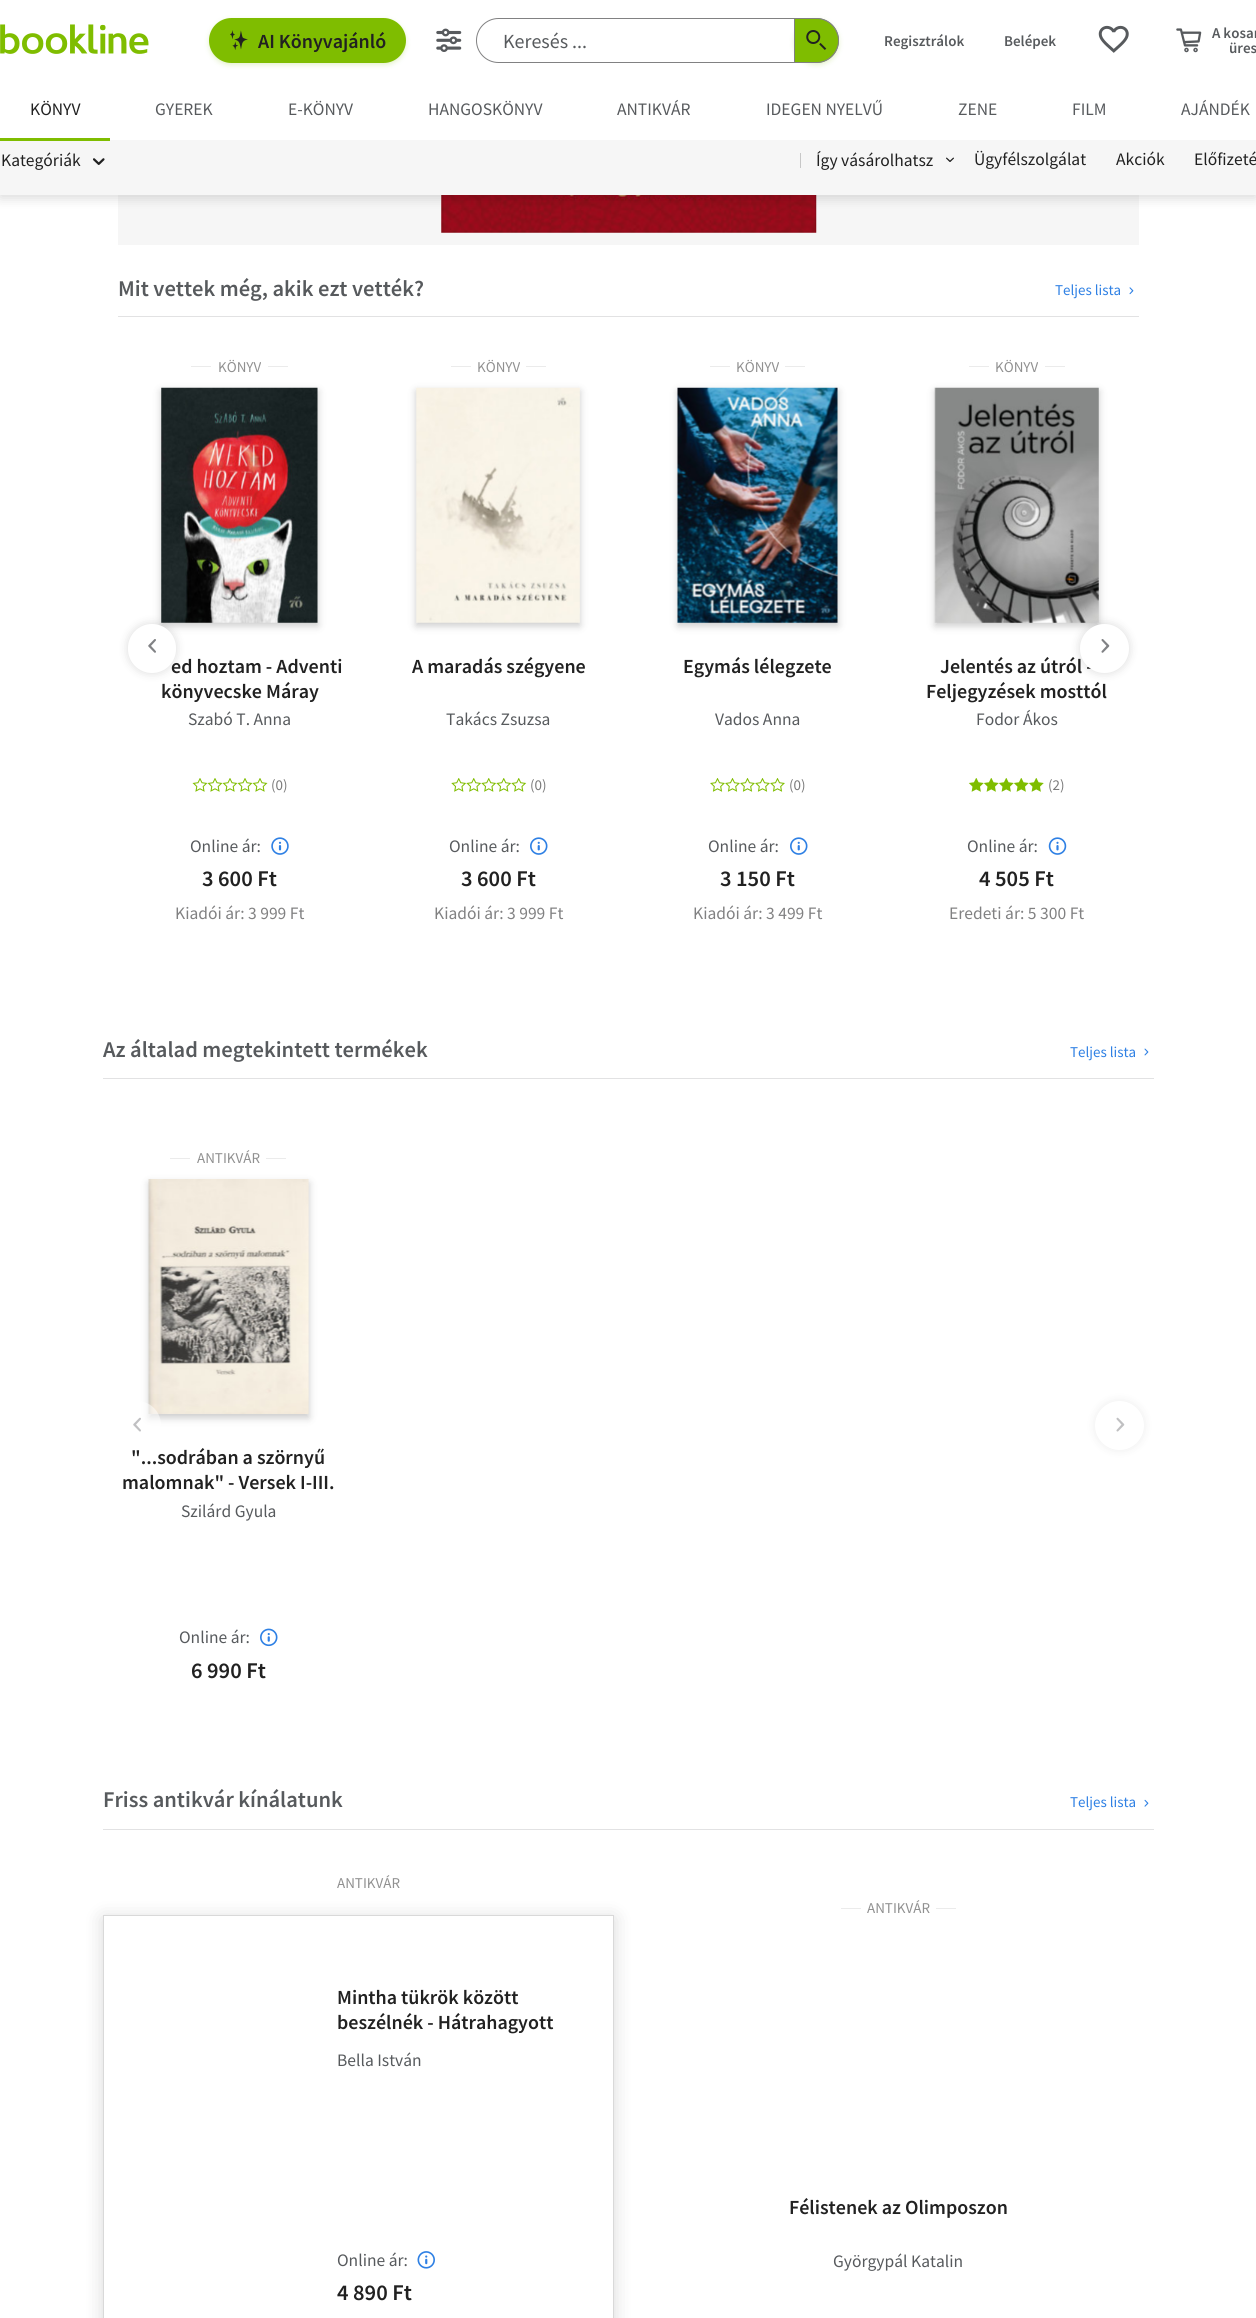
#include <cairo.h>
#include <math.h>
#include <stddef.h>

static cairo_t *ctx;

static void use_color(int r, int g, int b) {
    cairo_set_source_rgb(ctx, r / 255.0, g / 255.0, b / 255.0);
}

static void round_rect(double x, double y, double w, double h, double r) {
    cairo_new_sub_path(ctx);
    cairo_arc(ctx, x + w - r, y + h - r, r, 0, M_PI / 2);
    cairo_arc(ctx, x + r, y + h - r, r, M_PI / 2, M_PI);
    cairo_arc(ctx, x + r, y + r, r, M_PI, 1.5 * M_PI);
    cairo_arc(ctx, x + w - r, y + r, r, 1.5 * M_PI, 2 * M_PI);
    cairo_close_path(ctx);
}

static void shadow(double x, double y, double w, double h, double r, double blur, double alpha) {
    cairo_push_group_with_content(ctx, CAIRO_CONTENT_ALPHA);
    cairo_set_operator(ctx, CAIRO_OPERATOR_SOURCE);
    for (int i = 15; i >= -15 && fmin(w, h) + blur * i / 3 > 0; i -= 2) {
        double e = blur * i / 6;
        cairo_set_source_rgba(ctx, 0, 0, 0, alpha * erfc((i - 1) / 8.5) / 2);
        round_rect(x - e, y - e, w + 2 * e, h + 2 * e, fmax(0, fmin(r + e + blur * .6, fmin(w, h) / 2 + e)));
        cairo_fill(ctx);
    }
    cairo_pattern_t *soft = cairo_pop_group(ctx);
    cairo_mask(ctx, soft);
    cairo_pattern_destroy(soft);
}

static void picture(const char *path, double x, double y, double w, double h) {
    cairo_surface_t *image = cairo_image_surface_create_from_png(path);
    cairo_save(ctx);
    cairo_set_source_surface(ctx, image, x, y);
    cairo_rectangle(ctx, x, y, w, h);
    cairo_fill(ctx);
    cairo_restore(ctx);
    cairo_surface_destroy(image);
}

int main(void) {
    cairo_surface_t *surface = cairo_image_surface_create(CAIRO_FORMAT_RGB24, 1256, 2318);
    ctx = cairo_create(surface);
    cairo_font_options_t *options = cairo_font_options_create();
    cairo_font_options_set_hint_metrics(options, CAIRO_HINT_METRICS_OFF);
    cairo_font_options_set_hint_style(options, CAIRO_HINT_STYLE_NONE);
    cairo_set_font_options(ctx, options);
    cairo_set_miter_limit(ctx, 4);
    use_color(255, 255, 255);
    cairo_paint(ctx);
    use_color(246, 246, 246);
    cairo_rectangle(ctx, 118, 195, 1021, 50);
    cairo_fill(ctx);
    picture("img9.png", 441, 195, 376, 38);
    use_color(0, 0, 0);
    shadow(0, 3, 1256, 195, 0, 6, 0.15);
    use_color(255, 255, 255);
    cairo_rectangle(ctx, 0, 0, 1256, 140);
    cairo_fill(ctx);
    picture("img1.png", 0, 24, 149, 30);
    use_color(127, 189, 0);
    shadow(209, 20, 197, 45, 22.5, 2.5, 0.2);
    use_color(127, 189, 0);
    round_rect(209, 18, 197, 45, 22.5);
    cairo_fill(ctx);
    picture("img2.png", 230, 30, 18, 20);
    cairo_select_font_face(ctx, "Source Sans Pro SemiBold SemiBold", CAIRO_FONT_SLANT_NORMAL, CAIRO_FONT_WEIGHT_NORMAL);
    cairo_set_font_size(ctx, 20);
    use_color(33, 33, 33);
    cairo_move_to(ctx, 258, 48);
    cairo_show_text(ctx, "AI Könyvajánló");
    picture("img3.png", 436, 28, 26, 24);
    round_rect(476.5, 18.5, 362, 44, 22);
    use_color(129, 129, 130);
    cairo_set_line_width(ctx, 1);
    cairo_stroke(ctx);
    cairo_select_font_face(ctx, "Source Sans Pro", CAIRO_FONT_SLANT_NORMAL, CAIRO_FONT_WEIGHT_NORMAL);
    use_color(87, 90, 93);
    cairo_move_to(ctx, 503, 48);
    cairo_show_text(ctx, "Keresés ...");
    use_color(127, 189, 0);
    shadow(794, 20, 45, 45, 22.5, 2.5, 0.2);
    use_color(127, 189, 0);
    cairo_new_path(ctx);
    cairo_move_to(ctx, 794.5, 18.5);
    cairo_line_to(ctx, 816.5, 18.5);
    cairo_curve_to(ctx, 828.5, 18.5, 838.5, 28.5, 838.5, 40.5);
    cairo_curve_to(ctx, 838.5, 52.5, 828.5, 62.5, 816.5, 62.5);
    cairo_line_to(ctx, 794.5, 62.5);
    cairo_close_path(ctx);
    cairo_fill_preserve(ctx);
    use_color(129, 129, 130);
    cairo_stroke(ctx);
    picture("img4.png", 806, 30, 21, 20);
    cairo_select_font_face(ctx, "Source Sans Pro SemiBold SemiBold", CAIRO_FONT_SLANT_NORMAL, CAIRO_FONT_WEIGHT_NORMAL);
    cairo_set_font_size(ctx, 15);
    use_color(87, 90, 93);
    cairo_move_to(ctx, 884, 46);
    cairo_show_text(ctx, "Regisztrálok");
    cairo_move_to(ctx, 1004, 46);
    cairo_show_text(ctx, "Belépek");
    picture("img5.png", 1098, 25, 31, 28);
    picture("img6.png", 1176, 28, 26, 25);
    cairo_move_to(ctx, 1212, 38);
    cairo_show_text(ctx, "A kosar");
    cairo_move_to(ctx, 1229, 53);
    cairo_show_text(ctx, "üres");
    use_color(246, 246, 246);
    cairo_rectangle(ctx, 0, 140, 1256, 55);
    cairo_fill(ctx);
    use_color(127, 189, 0);
    cairo_rectangle(ctx, 0, 138, 110, 3);
    cairo_fill(ctx);
    cairo_select_font_face(ctx, "Source Sans Pro", CAIRO_FONT_SLANT_NORMAL, CAIRO_FONT_WEIGHT_NORMAL);
    cairo_set_font_size(ctx, 17.5);
    use_color(33, 33, 33);
    cairo_move_to(ctx, 30, 115);
    cairo_show_text(ctx, "KÖNYV");
    use_color(87, 90, 93);
    cairo_move_to(ctx, 155, 115);
    cairo_show_text(ctx, "GYEREK");
    cairo_move_to(ctx, 288, 115);
    cairo_show_text(ctx, "E-KÖNYV");
    cairo_move_to(ctx, 428, 115);
    cairo_show_text(ctx, "HANGOSKÖNYV");
    cairo_move_to(ctx, 617, 115);
    cairo_show_text(ctx, "ANTIKVÁR");
    cairo_move_to(ctx, 766, 115);
    cairo_show_text(ctx, "IDEGEN NYELVŰ");
    cairo_move_to(ctx, 958, 115);
    cairo_show_text(ctx, "ZENE");
    cairo_move_to(ctx, 1072, 115);
    cairo_show_text(ctx, "FILM");
    cairo_move_to(ctx, 1181, 115);
    cairo_show_text(ctx, "AJÁNDÉK");
    use_color(33, 33, 33);
    cairo_move_to(ctx, 1, 166);
    cairo_show_text(ctx, "Kategóriák");
    picture("img7.png", 93, 158, 12, 7);
    use_color(199, 199, 199);
    cairo_rectangle(ctx, 800, 153, 1, 15);
    cairo_fill(ctx);
    use_color(33, 33, 33);
    cairo_move_to(ctx, 816, 166);
    cairo_show_text(ctx, "Így vásárolhatsz");
    picture("img8.png", 946, 157, 8, 5);
    cairo_move_to(ctx, 974, 165);
    cairo_show_text(ctx, "Ügyfélszolgálat");
    cairo_move_to(ctx, 1116, 165);
    cairo_show_text(ctx, "Akciók");
    cairo_move_to(ctx, 1194, 165);
    cairo_show_text(ctx, "Előfizeté");
    use_color(226, 226, 227);
    cairo_rectangle(ctx, 118, 316, 1021, 1);
    cairo_fill(ctx);
    cairo_select_font_face(ctx, "Source Sans Pro SemiBold SemiBold", CAIRO_FONT_SLANT_NORMAL, CAIRO_FONT_WEIGHT_NORMAL);
    cairo_set_font_size(ctx, 22.5);
    use_color(87, 90, 93);
    cairo_move_to(ctx, 118, 296);
    cairo_show_text(ctx, "Mit vettek még, akik ezt vették?");
    cairo_select_font_face(ctx, "Source Sans Pro", CAIRO_FONT_SLANT_NORMAL, CAIRO_FONT_WEIGHT_NORMAL);
    cairo_set_font_size(ctx, 15);
    use_color(46, 128, 228);
    cairo_move_to(ctx, 1055, 295);
    cairo_show_text(ctx, "Teljes lista");
    picture("img10.png", 1129, 287, 5, 8);
    use_color(0, 0, 0);
    shadow(161, 391, 157, 235, 0, 4, 0.2);
    picture("img12.png", 161, 387, 157, 236);
    use_color(33, 33, 33);
    shadow(128, 624, 48, 49, 24, 5, 0.16);
    cairo_select_font_face(ctx, "Source Sans Pro SemiBold SemiBold", CAIRO_FONT_SLANT_NORMAL, CAIRO_FONT_WEIGHT_NORMAL);
    cairo_set_font_size(ctx, 20);
    use_color(33, 33, 33);
    cairo_move_to(ctx, 171, 673);
    cairo_show_text(ctx, "ed hoztam - Adventi");
    use_color(255, 255, 255);
    round_rect(128, 624, 48, 49, 24);
    cairo_fill(ctx);
    picture("img11.png", 148, 639, 8, 14);
    use_color(235, 235, 235);
    cairo_rectangle(ctx, 191, 366, 20, 1);
    cairo_fill(ctx);
    cairo_select_font_face(ctx, "Source Sans Pro", CAIRO_FONT_SLANT_NORMAL, CAIRO_FONT_WEIGHT_NORMAL);
    cairo_set_font_size(ctx, 15);
    use_color(144, 144, 144);
    cairo_move_to(ctx, 218, 372);
    cairo_show_text(ctx, "KÖNYV");
    use_color(235, 235, 235);
    cairo_rectangle(ctx, 268, 366, 20, 1);
    cairo_fill(ctx);
    cairo_select_font_face(ctx, "Source Sans Pro SemiBold SemiBold", CAIRO_FONT_SLANT_NORMAL, CAIRO_FONT_WEIGHT_NORMAL);
    cairo_set_font_size(ctx, 20);
    use_color(33, 33, 33);
    cairo_move_to(ctx, 161, 698);
    cairo_show_text(ctx, "könyvecske Máray");
    cairo_select_font_face(ctx, "Source Sans Pro", CAIRO_FONT_SLANT_NORMAL, CAIRO_FONT_WEIGHT_NORMAL);
    cairo_set_font_size(ctx, 17.5);
    use_color(87, 90, 93);
    cairo_move_to(ctx, 188, 725);
    cairo_show_text(ctx, "Szabó T. Anna");
    picture("img13.png", 192, 778, 76, 14);
    cairo_set_font_size(ctx, 15);
    use_color(122, 122, 122);
    cairo_move_to(ctx, 271, 790);
    cairo_show_text(ctx, "(0)");
    cairo_set_font_size(ctx, 17.5);
    use_color(87, 90, 93);
    cairo_move_to(ctx, 190, 852);
    cairo_show_text(ctx, "Online ár:");
    picture("img14.png", 271, 837, 18, 18);
    cairo_select_font_face(ctx, "Source Sans Pro SemiBold SemiBold", CAIRO_FONT_SLANT_NORMAL, CAIRO_FONT_WEIGHT_NORMAL);
    cairo_set_font_size(ctx, 22.5);
    use_color(33, 33, 33);
    cairo_move_to(ctx, 202, 886);
    cairo_show_text(ctx, "3 600 Ft");
    cairo_select_font_face(ctx, "Source Sans Pro", CAIRO_FONT_SLANT_NORMAL, CAIRO_FONT_WEIGHT_NORMAL);
    cairo_set_font_size(ctx, 17.5);
    use_color(129, 129, 130);
    cairo_move_to(ctx, 175, 919);
    cairo_show_text(ctx, "Kiadói ár: 3 999 Ft");
    use_color(235, 235, 235);
    cairo_rectangle(ctx, 451, 366, 20, 1);
    cairo_fill(ctx);
    cairo_set_font_size(ctx, 15);
    use_color(144, 144, 144);
    cairo_move_to(ctx, 477, 372);
    cairo_show_text(ctx, "KÖNYV");
    use_color(235, 235, 235);
    cairo_rectangle(ctx, 526, 366, 20, 1);
    cairo_fill(ctx);
    use_color(0, 0, 0);
    shadow(416, 391, 164, 235, 0, 4, 0.2);
    picture("img15.png", 416, 387, 164, 236);
    cairo_select_font_face(ctx, "Source Sans Pro SemiBold SemiBold", CAIRO_FONT_SLANT_NORMAL, CAIRO_FONT_WEIGHT_NORMAL);
    cairo_set_font_size(ctx, 20);
    use_color(33, 33, 33);
    cairo_move_to(ctx, 412, 673);
    cairo_show_text(ctx, "A maradás szégyene");
    cairo_select_font_face(ctx, "Source Sans Pro", CAIRO_FONT_SLANT_NORMAL, CAIRO_FONT_WEIGHT_NORMAL);
    cairo_set_font_size(ctx, 17.5);
    use_color(87, 90, 93);
    cairo_move_to(ctx, 446, 725);
    cairo_show_text(ctx, "Takács Zsuzsa");
    picture("img16.png", 451, 778, 76, 14);
    cairo_set_font_size(ctx, 15);
    use_color(122, 122, 122);
    cairo_move_to(ctx, 530, 790);
    cairo_show_text(ctx, "(0)");
    cairo_set_font_size(ctx, 17.5);
    use_color(87, 90, 93);
    cairo_move_to(ctx, 449, 852);
    cairo_show_text(ctx, "Online ár:");
    picture("img17.png", 530, 837, 18, 18);
    cairo_select_font_face(ctx, "Source Sans Pro SemiBold SemiBold", CAIRO_FONT_SLANT_NORMAL, CAIRO_FONT_WEIGHT_NORMAL);
    cairo_set_font_size(ctx, 22.5);
    use_color(33, 33, 33);
    cairo_move_to(ctx, 461, 886);
    cairo_show_text(ctx, "3 600 Ft");
    cairo_select_font_face(ctx, "Source Sans Pro", CAIRO_FONT_SLANT_NORMAL, CAIRO_FONT_WEIGHT_NORMAL);
    cairo_set_font_size(ctx, 17.5);
    use_color(129, 129, 130);
    cairo_move_to(ctx, 434, 919);
    cairo_show_text(ctx, "Kiadói ár: 3 999 Ft");
    use_color(235, 235, 235);
    cairo_rectangle(ctx, 710, 366, 20, 1);
    cairo_fill(ctx);
    cairo_set_font_size(ctx, 15);
    use_color(144, 144, 144);
    cairo_move_to(ctx, 736, 372);
    cairo_show_text(ctx, "KÖNYV");
    use_color(235, 235, 235);
    cairo_rectangle(ctx, 785, 366, 20, 1);
    cairo_fill(ctx);
    use_color(0, 0, 0);
    shadow(678, 391, 160, 235, 0, 4, 0.2);
    picture("img18.png", 677, 387, 161, 236);
    cairo_select_font_face(ctx, "Source Sans Pro SemiBold SemiBold", CAIRO_FONT_SLANT_NORMAL, CAIRO_FONT_WEIGHT_NORMAL);
    cairo_set_font_size(ctx, 20);
    use_color(33, 33, 33);
    cairo_move_to(ctx, 683, 673);
    cairo_show_text(ctx, "Egymás lélegzete");
    cairo_select_font_face(ctx, "Source Sans Pro", CAIRO_FONT_SLANT_NORMAL, CAIRO_FONT_WEIGHT_NORMAL);
    cairo_set_font_size(ctx, 17.5);
    use_color(87, 90, 93);
    cairo_move_to(ctx, 715, 725);
    cairo_show_text(ctx, "Vados Anna");
    picture("img19.png", 710, 778, 75, 14);
    cairo_set_font_size(ctx, 15);
    use_color(122, 122, 122);
    cairo_move_to(ctx, 789, 790);
    cairo_show_text(ctx, "(0)");
    cairo_set_font_size(ctx, 17.5);
    use_color(87, 90, 93);
    cairo_move_to(ctx, 708, 852);
    cairo_show_text(ctx, "Online ár:");
    picture("img17.png", 790, 837, 18, 18);
    cairo_select_font_face(ctx, "Source Sans Pro SemiBold SemiBold", CAIRO_FONT_SLANT_NORMAL, CAIRO_FONT_WEIGHT_NORMAL);
    cairo_set_font_size(ctx, 22.5);
    use_color(33, 33, 33);
    cairo_move_to(ctx, 720, 886);
    cairo_show_text(ctx, "3 150 Ft");
    cairo_select_font_face(ctx, "Source Sans Pro", CAIRO_FONT_SLANT_NORMAL, CAIRO_FONT_WEIGHT_NORMAL);
    cairo_set_font_size(ctx, 17.5);
    use_color(129, 129, 130);
    cairo_move_to(ctx, 693, 919);
    cairo_show_text(ctx, "Kiadói ár: 3 499 Ft");
    use_color(235, 235, 235);
    cairo_rectangle(ctx, 969, 366, 20, 1);
    cairo_fill(ctx);
    cairo_set_font_size(ctx, 15);
    use_color(144, 144, 144);
    cairo_move_to(ctx, 995, 372);
    cairo_show_text(ctx, "KÖNYV");
    use_color(235, 235, 235);
    cairo_rectangle(ctx, 1045, 366, 20, 1);
    cairo_fill(ctx);
    use_color(0, 0, 0);
    shadow(935, 391, 164, 235, 0, 4, 0.2);
    picture("img20.png", 934, 387, 165, 236);
    cairo_select_font_face(ctx, "Source Sans Pro SemiBold SemiBold", CAIRO_FONT_SLANT_NORMAL, CAIRO_FONT_WEIGHT_NORMAL);
    cairo_set_font_size(ctx, 20);
    use_color(33, 33, 33);
    cairo_move_to(ctx, 940, 673);
    cairo_show_text(ctx, "Jelentés az útról -");
    cairo_move_to(ctx, 926, 698);
    cairo_show_text(ctx, "Feljegyzések mosttól");
    cairo_select_font_face(ctx, "Source Sans Pro", CAIRO_FONT_SLANT_NORMAL, CAIRO_FONT_WEIGHT_NORMAL);
    cairo_set_font_size(ctx, 17.5);
    use_color(87, 90, 93);
    cairo_move_to(ctx, 976, 725);
    cairo_show_text(ctx, "Fodor Ákos");
    picture("img21.png", 968, 778, 76, 14);
    cairo_set_font_size(ctx, 15);
    use_color(122, 122, 122);
    cairo_move_to(ctx, 1048, 790);
    cairo_show_text(ctx, "(2)");
    cairo_set_font_size(ctx, 17.5);
    use_color(87, 90, 93);
    cairo_move_to(ctx, 967, 852);
    cairo_show_text(ctx, "Online ár:");
    picture("img22.png", 1048, 837, 19, 18);
    cairo_select_font_face(ctx, "Source Sans Pro SemiBold SemiBold", CAIRO_FONT_SLANT_NORMAL, CAIRO_FONT_WEIGHT_NORMAL);
    cairo_set_font_size(ctx, 22.5);
    use_color(33, 33, 33);
    cairo_move_to(ctx, 979, 886);
    cairo_show_text(ctx, "4 505 Ft");
    cairo_select_font_face(ctx, "Source Sans Pro", CAIRO_FONT_SLANT_NORMAL, CAIRO_FONT_WEIGHT_NORMAL);
    cairo_set_font_size(ctx, 17.5);
    use_color(129, 129, 130);
    cairo_move_to(ctx, 949, 919);
    cairo_show_text(ctx, "Eredeti ár: 5 300 Ft");
    use_color(33, 33, 33);
    shadow(1080, 624, 49, 49, 24.5, 5, 0.16);
    use_color(255, 255, 255);
    cairo_arc(ctx, 1104.5, 648.5, 24.5, 0, 2 * M_PI);
    cairo_fill(ctx);
    picture("img23.png", 1101, 639, 9, 14);
    use_color(226, 226, 227);
    cairo_rectangle(ctx, 103, 1078, 1051, 1);
    cairo_fill(ctx);
    cairo_select_font_face(ctx, "Source Sans Pro SemiBold SemiBold", CAIRO_FONT_SLANT_NORMAL, CAIRO_FONT_WEIGHT_NORMAL);
    cairo_set_font_size(ctx, 22.5);
    use_color(87, 90, 93);
    cairo_move_to(ctx, 103, 1057);
    cairo_show_text(ctx, "Az általad megtekintett termékek");
    cairo_select_font_face(ctx, "Source Sans Pro", CAIRO_FONT_SLANT_NORMAL, CAIRO_FONT_WEIGHT_NORMAL);
    cairo_set_font_size(ctx, 15);
    use_color(46, 128, 228);
    cairo_move_to(ctx, 1070, 1057);
    cairo_show_text(ctx, "Teljes lista");
    picture("img24.png", 1144, 1048, 5, 8);
    use_color(235, 235, 235);
    cairo_rectangle(ctx, 170, 1158, 20, 1);
    cairo_fill(ctx);
    use_color(144, 144, 144);
    cairo_move_to(ctx, 197, 1163);
    cairo_show_text(ctx, "ANTIKVÁR");
    use_color(235, 235, 235);
    cairo_rectangle(ctx, 266, 1158, 20, 1);
    cairo_fill(ctx);
    use_color(0, 0, 0);
    shadow(149, 1183, 160, 235, 0, 4, 0.2);
    picture("img25.png", 148, 1179, 161, 235);
    cairo_select_font_face(ctx, "Source Sans Pro SemiBold SemiBold", CAIRO_FONT_SLANT_NORMAL, CAIRO_FONT_WEIGHT_NORMAL);
    cairo_set_font_size(ctx, 20);
    use_color(33, 33, 33);
    cairo_move_to(ctx, 131, 1464);
    cairo_show_text(ctx, "\"...sodrában a szörnyű");
    cairo_move_to(ctx, 122, 1489);
    cairo_show_text(ctx, "malomnak\" - Versek I-III.");
    cairo_select_font_face(ctx, "Source Sans Pro", CAIRO_FONT_SLANT_NORMAL, CAIRO_FONT_WEIGHT_NORMAL);
    cairo_set_font_size(ctx, 17.5);
    use_color(87, 90, 93);
    cairo_move_to(ctx, 181, 1517);
    cairo_show_text(ctx, "Szilárd Gyula");
    cairo_move_to(ctx, 179, 1643);
    cairo_show_text(ctx, "Online ár:");
    picture("img26.png", 260, 1628, 18, 19);
    cairo_select_font_face(ctx, "Source Sans Pro SemiBold SemiBold", CAIRO_FONT_SLANT_NORMAL, CAIRO_FONT_WEIGHT_NORMAL);
    cairo_set_font_size(ctx, 22.5);
    use_color(33, 33, 33);
    cairo_move_to(ctx, 191, 1678);
    cairo_show_text(ctx, "6 990 Ft");
    use_color(144, 144, 144);
    shadow(1095, 1401, 49, 49, 24.5, 5, 0.16);
    use_color(255, 255, 255);
    cairo_arc(ctx, 1119.5, 1425.5, 24.5, 0, 2 * M_PI);
    cairo_fill(ctx);
    picture("img27.png", 1116, 1417, 9, 15);
    cairo_set_source_rgba(ctx, 1, 1, 1, 0.5);
    round_rect(113, 1401, 48, 49, 24);
    cairo_fill(ctx);
    picture("img28.png", 133, 1417, 8, 15);
    use_color(226, 226, 227);
    cairo_rectangle(ctx, 103, 1829, 1051, 1);
    cairo_fill(ctx);
    use_color(87, 90, 93);
    cairo_move_to(ctx, 103, 1807);
    cairo_show_text(ctx, "Friss antikvár kínálatunk");
    cairo_select_font_face(ctx, "Source Sans Pro", CAIRO_FONT_SLANT_NORMAL, CAIRO_FONT_WEIGHT_NORMAL);
    cairo_set_font_size(ctx, 15);
    use_color(46, 128, 228);
    cairo_move_to(ctx, 1070, 1807);
    cairo_show_text(ctx, "Teljes lista");
    picture("img29.png", 1144, 1799, 5, 8);
    use_color(144, 144, 144);
    cairo_move_to(ctx, 337, 1888);
    cairo_show_text(ctx, "ANTIKVÁR");
    use_color(0, 0, 0);
    shadow(103, 1918, 511, 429, 0, 9.5, 0.15);
    use_color(255, 255, 255);
    cairo_rectangle(ctx, 103.5, 1915.5, 510, 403);
    cairo_fill_preserve(ctx);
    use_color(217, 217, 217);
    cairo_stroke(ctx);
    cairo_select_font_face(ctx, "Source Sans Pro SemiBold SemiBold", CAIRO_FONT_SLANT_NORMAL, CAIRO_FONT_WEIGHT_NORMAL);
    cairo_set_font_size(ctx, 20);
    use_color(33, 33, 33);
    cairo_move_to(ctx, 337, 2004);
    cairo_show_text(ctx, "Mintha tükrök között");
    cairo_move_to(ctx, 337, 2029);
    cairo_show_text(ctx, "beszélnék - Hátrahagyott");
    cairo_select_font_face(ctx, "Source Sans Pro", CAIRO_FONT_SLANT_NORMAL, CAIRO_FONT_WEIGHT_NORMAL);
    cairo_set_font_size(ctx, 17.5);
    use_color(87, 90, 93);
    cairo_move_to(ctx, 337, 2066);
    cairo_show_text(ctx, "Bella István");
    cairo_move_to(ctx, 337, 2266);
    cairo_show_text(ctx, "Online ár:");
    picture("img30.png", 417, 2251, 18, 18);
    cairo_select_font_face(ctx, "Source Sans Pro SemiBold SemiBold", CAIRO_FONT_SLANT_NORMAL, CAIRO_FONT_WEIGHT_NORMAL);
    cairo_set_font_size(ctx, 22.5);
    use_color(33, 33, 33);
    cairo_move_to(ctx, 337, 2300);
    cairo_show_text(ctx, "4 890 Ft");
    use_color(235, 235, 235);
    cairo_rectangle(ctx, 841, 1908, 20, 1);
    cairo_fill(ctx);
    cairo_select_font_face(ctx, "Source Sans Pro", CAIRO_FONT_SLANT_NORMAL, CAIRO_FONT_WEIGHT_NORMAL);
    cairo_set_font_size(ctx, 15);
    use_color(144, 144, 144);
    cairo_move_to(ctx, 867, 1913);
    cairo_show_text(ctx, "ANTIKVÁR");
    use_color(235, 235, 235);
    cairo_rectangle(ctx, 936, 1908, 20, 1);
    cairo_fill(ctx);
    cairo_select_font_face(ctx, "Source Sans Pro SemiBold SemiBold", CAIRO_FONT_SLANT_NORMAL, CAIRO_FONT_WEIGHT_NORMAL);
    cairo_set_font_size(ctx, 20);
    use_color(33, 33, 33);
    cairo_move_to(ctx, 789, 2214);
    cairo_show_text(ctx, "Félistenek az Olimposzon");
    cairo_select_font_face(ctx, "Source Sans Pro", CAIRO_FONT_SLANT_NORMAL, CAIRO_FONT_WEIGHT_NORMAL);
    cairo_set_font_size(ctx, 17.5);
    use_color(87, 90, 93);
    cairo_move_to(ctx, 833, 2267);
    cairo_show_text(ctx, "Györgypál Katalin");
    cairo_surface_write_to_png(surface, "result.png");
    cairo_font_options_destroy(options);
    cairo_destroy(ctx);
    cairo_surface_destroy(surface);
    return 0;
}
